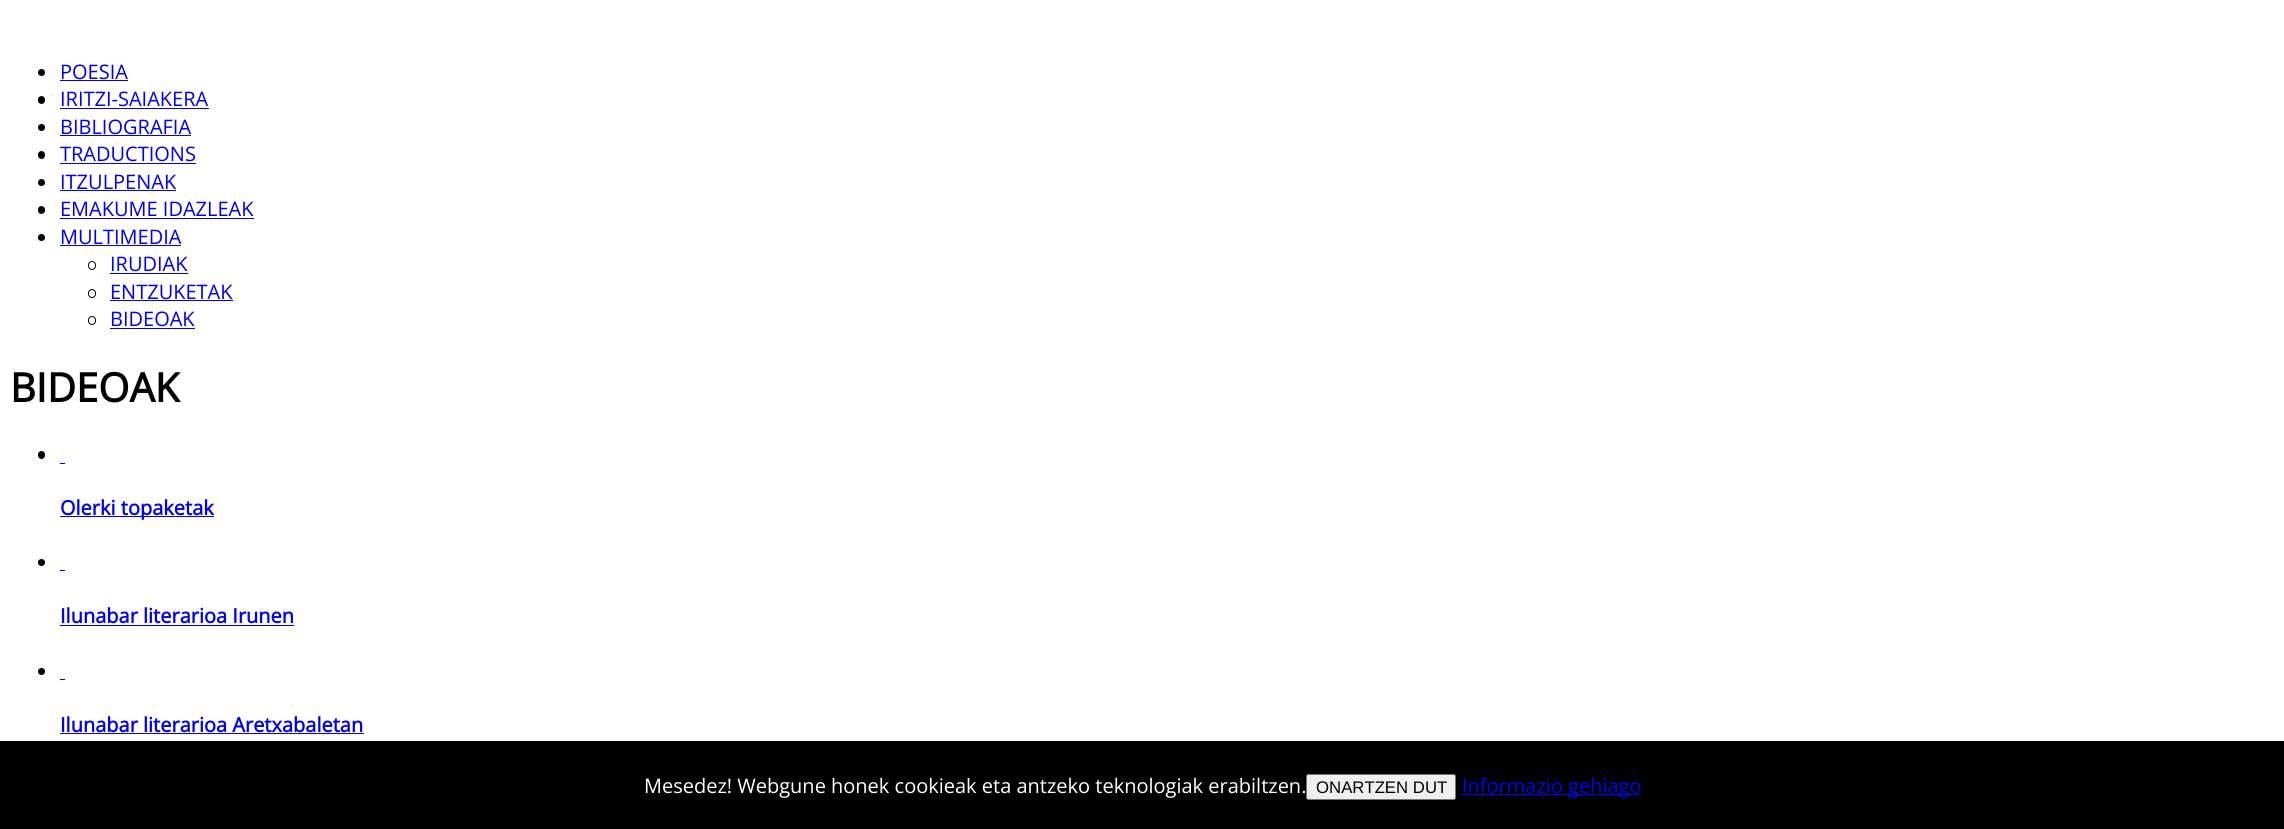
#include <cairo.h>
#include <math.h>
#include <stddef.h>

static cairo_t *ctx;

static void use_color(int r, int g, int b) {
    cairo_set_source_rgb(ctx, r / 255.0, g / 255.0, b / 255.0);
}

static void round_rect(double x, double y, double w, double h, double r) {
    cairo_new_sub_path(ctx);
    cairo_arc(ctx, x + w - r, y + h - r, r, 0, M_PI / 2);
    cairo_arc(ctx, x + r, y + h - r, r, M_PI / 2, M_PI);
    cairo_arc(ctx, x + r, y + r, r, M_PI, 1.5 * M_PI);
    cairo_arc(ctx, x + w - r, y + r, r, 1.5 * M_PI, 2 * M_PI);
    cairo_close_path(ctx);
}

int main(void) {
    cairo_surface_t *surface = cairo_image_surface_create(CAIRO_FORMAT_RGB24, 2284, 829);
    ctx = cairo_create(surface);
    cairo_font_options_t *options = cairo_font_options_create();
    cairo_font_options_set_hint_metrics(options, CAIRO_HINT_METRICS_OFF);
    cairo_font_options_set_hint_style(options, CAIRO_HINT_STYLE_NONE);
    cairo_set_font_options(ctx, options);
    cairo_set_miter_limit(ctx, 4);
    use_color(255, 255, 255);
    cairo_paint(ctx);
    use_color(0, 0, 0);
    cairo_arc(ctx, 41.5, 72.5, 3.5, 0, 2 * M_PI);
    cairo_fill(ctx);
    cairo_select_font_face(ctx, "Open Sans", CAIRO_FONT_SLANT_NORMAL, CAIRO_FONT_WEIGHT_NORMAL);
    cairo_set_font_size(ctx, 20);
    use_color(0, 0, 238);
    cairo_move_to(ctx, 60, 79);
    cairo_show_text(ctx, "POESIA");
    cairo_rectangle(ctx, 60, 80, 68, 1);
    cairo_fill(ctx);
    use_color(0, 0, 0);
    round_rect(38, 96, 7, 8, 3.5);
    cairo_fill(ctx);
    use_color(0, 0, 238);
    cairo_move_to(ctx, 60, 106);
    cairo_show_text(ctx, "IRITZI-SAIAKERA");
    cairo_rectangle(ctx, 60, 108, 149, 1);
    cairo_fill(ctx);
    use_color(0, 0, 0);
    cairo_arc(ctx, 41.5, 127.5, 3.5, 0, 2 * M_PI);
    cairo_fill(ctx);
    use_color(0, 0, 238);
    cairo_move_to(ctx, 60, 134);
    cairo_show_text(ctx, "BIBLIOGRAFIA");
    cairo_rectangle(ctx, 60, 135, 131, 1);
    cairo_fill(ctx);
    use_color(0, 0, 0);
    round_rect(38, 151, 7, 8, 3.5);
    cairo_fill(ctx);
    use_color(0, 0, 238);
    cairo_move_to(ctx, 60, 161);
    cairo_show_text(ctx, "TRADUCTIONS");
    cairo_rectangle(ctx, 60, 163, 136, 1);
    cairo_fill(ctx);
    use_color(0, 0, 0);
    cairo_arc(ctx, 41.5, 182.5, 3.5, 0, 2 * M_PI);
    cairo_fill(ctx);
    use_color(0, 0, 238);
    cairo_move_to(ctx, 60, 189);
    cairo_show_text(ctx, "ITZULPENAK");
    cairo_rectangle(ctx, 60, 190, 116, 1);
    cairo_fill(ctx);
    use_color(0, 0, 0);
    round_rect(38, 206, 7, 8, 3.5);
    cairo_fill(ctx);
    use_color(0, 0, 238);
    cairo_move_to(ctx, 60, 216);
    cairo_show_text(ctx, "EMAKUME IDAZLEAK");
    cairo_rectangle(ctx, 60, 218, 194, 1);
    cairo_fill(ctx);
    use_color(0, 0, 0);
    cairo_arc(ctx, 41.5, 237.5, 3.5, 0, 2 * M_PI);
    cairo_fill(ctx);
    use_color(0, 0, 238);
    cairo_move_to(ctx, 60, 244);
    cairo_show_text(ctx, "MULTIMEDIA");
    cairo_rectangle(ctx, 60, 245, 121, 1);
    cairo_fill(ctx);
    round_rect(88.5, 261.5, 7, 8, 3.5);
    use_color(0, 0, 0);
    cairo_set_line_width(ctx, 1);
    cairo_stroke(ctx);
    use_color(0, 0, 238);
    cairo_move_to(ctx, 110, 271);
    cairo_show_text(ctx, "IRUDIAK");
    cairo_rectangle(ctx, 110, 273, 78, 1);
    cairo_fill(ctx);
    round_rect(88.5, 289.5, 7, 8, 3.5);
    use_color(0, 0, 0);
    cairo_stroke(ctx);
    use_color(0, 0, 238);
    cairo_move_to(ctx, 110, 299);
    cairo_show_text(ctx, "ENTZUKETAK");
    cairo_rectangle(ctx, 110, 300, 123, 1);
    cairo_fill(ctx);
    round_rect(88.5, 316.5, 7, 8, 3.5);
    use_color(0, 0, 0);
    cairo_stroke(ctx);
    use_color(0, 0, 238);
    cairo_move_to(ctx, 110, 326);
    cairo_show_text(ctx, "BIDEOAK");
    cairo_rectangle(ctx, 110, 328, 85, 1);
    cairo_fill(ctx);
    cairo_select_font_face(ctx, "Open Sans", CAIRO_FONT_SLANT_NORMAL, CAIRO_FONT_WEIGHT_BOLD);
    cairo_set_font_size(ctx, 40);
    use_color(0, 0, 0);
    cairo_move_to(ctx, 10, 402);
    cairo_show_text(ctx, "BIDEOAK");
    round_rect(38, 451, 7, 8, 3.5);
    cairo_fill(ctx);
    use_color(0, 0, 238);
    cairo_rectangle(ctx, 60, 463, 5, 1);
    cairo_fill(ctx);
    cairo_rectangle(ctx, 60, 516, 154, 1);
    cairo_fill(ctx);
    cairo_set_font_size(ctx, 20);
    cairo_move_to(ctx, 60, 515);
    cairo_show_text(ctx, "Olerki topaketak");
    use_color(0, 0, 0);
    cairo_new_path(ctx);
    cairo_arc(ctx, 41.5, 562.5, 3.5, 0, 2 * M_PI);
    cairo_fill(ctx);
    use_color(0, 0, 238);
    cairo_rectangle(ctx, 60, 570, 5, 1);
    cairo_fill(ctx);
    cairo_move_to(ctx, 60, 623);
    cairo_show_text(ctx, "Ilunabar literarioa Irunen");
    cairo_rectangle(ctx, 60, 625, 234, 1);
    cairo_fill(ctx);
    use_color(0, 0, 0);
    cairo_arc(ctx, 41.5, 671.5, 3.5, 0, 2 * M_PI);
    cairo_fill(ctx);
    use_color(0, 0, 238);
    cairo_rectangle(ctx, 60, 679, 5, 1);
    cairo_fill(ctx);
    cairo_move_to(ctx, 60, 732);
    cairo_show_text(ctx, "Ilunabar literarioa Aretxabaletan");
    cairo_rectangle(ctx, 60, 733, 304, 1);
    cairo_fill(ctx);
    use_color(0, 0, 0);
    cairo_rectangle(ctx, 0, 741, 2284, 88);
    cairo_fill(ctx);
    cairo_select_font_face(ctx, "Open Sans", CAIRO_FONT_SLANT_NORMAL, CAIRO_FONT_WEIGHT_NORMAL);
    use_color(255, 255, 255);
    cairo_move_to(ctx, 644, 793);
    cairo_show_text(ctx, "Mesedez! Webgune honek cookieak eta antzeko teknologiak erabiltzen.");
    use_color(239, 239, 239);
    round_rect(1306.5, 774.5, 149, 25, 2);
    cairo_fill_preserve(ctx);
    use_color(118, 118, 118);
    cairo_stroke(ctx);
    cairo_select_font_face(ctx, "Liberation Sans", CAIRO_FONT_SLANT_NORMAL, CAIRO_FONT_WEIGHT_NORMAL);
    cairo_set_font_size(ctx, 16.75);
    use_color(0, 0, 0);
    cairo_move_to(ctx, 1316, 793);
    cairo_show_text(ctx, "ONARTZEN DUT");
    use_color(0, 0, 238);
    cairo_rectangle(ctx, 1461, 794, 180, 1);
    cairo_fill(ctx);
    cairo_select_font_face(ctx, "Open Sans", CAIRO_FONT_SLANT_NORMAL, CAIRO_FONT_WEIGHT_NORMAL);
    cairo_set_font_size(ctx, 20);
    cairo_move_to(ctx, 1462, 793);
    cairo_show_text(ctx, "Informazio gehiago");
    cairo_surface_write_to_png(surface, "result.png");
    cairo_font_options_destroy(options);
    cairo_destroy(ctx);
    cairo_surface_destroy(surface);
    return 0;
}
